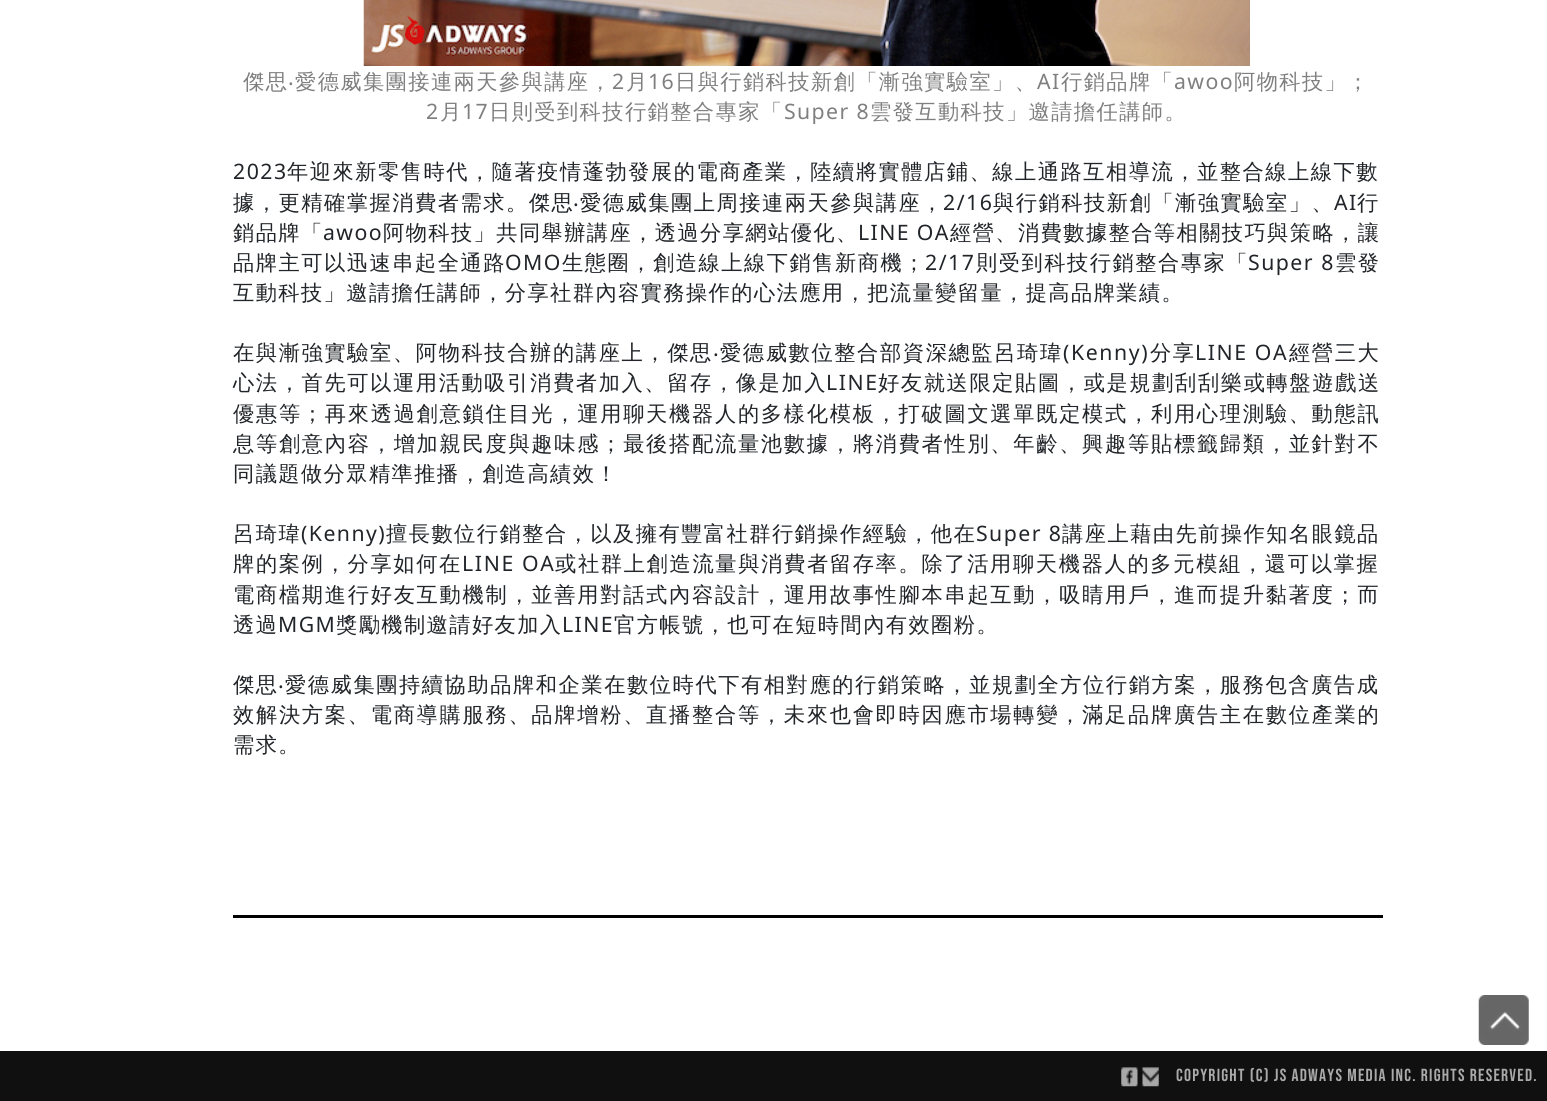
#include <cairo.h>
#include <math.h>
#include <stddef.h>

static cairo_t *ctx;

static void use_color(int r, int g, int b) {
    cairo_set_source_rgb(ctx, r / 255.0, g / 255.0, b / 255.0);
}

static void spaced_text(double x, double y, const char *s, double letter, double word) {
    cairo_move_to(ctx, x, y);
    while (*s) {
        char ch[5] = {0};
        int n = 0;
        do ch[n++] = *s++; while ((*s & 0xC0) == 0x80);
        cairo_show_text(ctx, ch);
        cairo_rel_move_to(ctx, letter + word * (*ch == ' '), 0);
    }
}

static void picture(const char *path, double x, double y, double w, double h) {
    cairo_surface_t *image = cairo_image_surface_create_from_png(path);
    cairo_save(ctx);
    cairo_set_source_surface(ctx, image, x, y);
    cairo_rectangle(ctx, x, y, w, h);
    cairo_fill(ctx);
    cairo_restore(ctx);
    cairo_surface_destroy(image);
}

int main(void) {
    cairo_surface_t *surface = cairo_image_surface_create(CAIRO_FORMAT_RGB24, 1547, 1101);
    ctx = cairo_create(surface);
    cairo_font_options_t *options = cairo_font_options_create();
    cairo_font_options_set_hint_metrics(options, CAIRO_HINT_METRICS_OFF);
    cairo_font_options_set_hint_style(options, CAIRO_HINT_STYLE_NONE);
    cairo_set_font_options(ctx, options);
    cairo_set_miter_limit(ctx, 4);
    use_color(255, 255, 255);
    cairo_paint(ctx);
    picture("img1.png", 363, 0, 887, 66);
    cairo_select_font_face(ctx, "WenQuanYi Zen Hei Medium", CAIRO_FONT_SLANT_NORMAL, CAIRO_FONT_WEIGHT_NORMAL);
    cairo_set_font_size(ctx, 21.25);
    use_color(127, 127, 127);
    spaced_text(243, 89, "傑思", 1.4, 0);
    cairo_select_font_face(ctx, "Noto Sans", CAIRO_FONT_SLANT_NORMAL, CAIRO_FONT_WEIGHT_NORMAL);
    spaced_text(288, 89, "‧", 1.4, 0);
    cairo_select_font_face(ctx, "WenQuanYi Zen Hei Medium", CAIRO_FONT_SLANT_NORMAL, CAIRO_FONT_WEIGHT_NORMAL);
    spaced_text(295, 89, "愛德威集團接連兩天參與講座，", 1.4, 0);
    cairo_select_font_face(ctx, "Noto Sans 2", CAIRO_FONT_SLANT_NORMAL, CAIRO_FONT_WEIGHT_NORMAL);
    spaced_text(612, 89, "2", 1.4, 0);
    cairo_select_font_face(ctx, "WenQuanYi Zen Hei Medium", CAIRO_FONT_SLANT_NORMAL, CAIRO_FONT_WEIGHT_NORMAL);
    spaced_text(626, 89, "月", 1.4, 0);
    cairo_select_font_face(ctx, "Noto Sans 2", CAIRO_FONT_SLANT_NORMAL, CAIRO_FONT_WEIGHT_NORMAL);
    spaced_text(648, 89, "16", 1.4, 0);
    cairo_select_font_face(ctx, "WenQuanYi Zen Hei Medium", CAIRO_FONT_SLANT_NORMAL, CAIRO_FONT_WEIGHT_NORMAL);
    spaced_text(675, 89, "日與行銷科技新創「漸強實驗室」、", 1.4, 0);
    cairo_select_font_face(ctx, "Noto Sans 2", CAIRO_FONT_SLANT_NORMAL, CAIRO_FONT_WEIGHT_NORMAL);
    spaced_text(1037, 89, "AI", 1.4, 0);
    cairo_select_font_face(ctx, "WenQuanYi Zen Hei Medium", CAIRO_FONT_SLANT_NORMAL, CAIRO_FONT_WEIGHT_NORMAL);
    spaced_text(1061, 89, "行銷品牌「", 1.4, 0);
    cairo_select_font_face(ctx, "Noto Sans 2", CAIRO_FONT_SLANT_NORMAL, CAIRO_FONT_WEIGHT_NORMAL);
    spaced_text(1174, 89, "awoo", 1.4, 0);
    cairo_select_font_face(ctx, "WenQuanYi Zen Hei Medium", CAIRO_FONT_SLANT_NORMAL, CAIRO_FONT_WEIGHT_NORMAL);
    spaced_text(1234, 89, "阿物科技」；", 1.4, 0);
    cairo_select_font_face(ctx, "Noto Sans 2", CAIRO_FONT_SLANT_NORMAL, CAIRO_FONT_WEIGHT_NORMAL);
    spaced_text(426, 119, "2", 1.4, 0);
    cairo_select_font_face(ctx, "WenQuanYi Zen Hei Medium", CAIRO_FONT_SLANT_NORMAL, CAIRO_FONT_WEIGHT_NORMAL);
    spaced_text(440, 119, "月", 1.4, 0);
    cairo_select_font_face(ctx, "Noto Sans 2", CAIRO_FONT_SLANT_NORMAL, CAIRO_FONT_WEIGHT_NORMAL);
    spaced_text(462, 119, "17", 1.4, 0);
    cairo_select_font_face(ctx, "WenQuanYi Zen Hei Medium", CAIRO_FONT_SLANT_NORMAL, CAIRO_FONT_WEIGHT_NORMAL);
    spaced_text(489, 119, "日則受到科技行銷整合專家「", 1.4, 0);
    cairo_select_font_face(ctx, "Noto Sans 2", CAIRO_FONT_SLANT_NORMAL, CAIRO_FONT_WEIGHT_NORMAL);
    spaced_text(784, 119, "Super 8", 1.4, 0);
    cairo_select_font_face(ctx, "WenQuanYi Zen Hei Medium", CAIRO_FONT_SLANT_NORMAL, CAIRO_FONT_WEIGHT_NORMAL);
    spaced_text(870, 119, "雲發互動科技」邀請擔任講師。", 1.4, 0);
    cairo_select_font_face(ctx, "Noto Sans 2", CAIRO_FONT_SLANT_NORMAL, CAIRO_FONT_WEIGHT_NORMAL);
    use_color(33, 37, 41);
    spaced_text(233, 179, "2023", 1.5, 0);
    cairo_select_font_face(ctx, "WenQuanYi Zen Hei Medium", CAIRO_FONT_SLANT_NORMAL, CAIRO_FONT_WEIGHT_NORMAL);
    spaced_text(287, 179, "年迎來新零售時代，隨著疫情蓬勃發展的電商產業，陸續將實體店鋪、線上通路互相導流，並整合線上線下數", 1.5, 0);
    spaced_text(233, 210, "據，更精確掌握消費者需求。傑思", 1.5, 0);
    cairo_select_font_face(ctx, "Noto Sans", CAIRO_FONT_SLANT_NORMAL, CAIRO_FONT_WEIGHT_NORMAL);
    spaced_text(573, 210, "‧", 1.5, 0);
    cairo_select_font_face(ctx, "WenQuanYi Zen Hei Medium", CAIRO_FONT_SLANT_NORMAL, CAIRO_FONT_WEIGHT_NORMAL);
    spaced_text(580, 210, "愛德威集團上周接連兩天參與講座，", 1.5, 0);
    cairo_select_font_face(ctx, "Noto Sans 2", CAIRO_FONT_SLANT_NORMAL, CAIRO_FONT_WEIGHT_NORMAL);
    spaced_text(943, 210, "2/16", 1.5, 0);
    cairo_select_font_face(ctx, "WenQuanYi Zen Hei Medium", CAIRO_FONT_SLANT_NORMAL, CAIRO_FONT_WEIGHT_NORMAL);
    spaced_text(993, 210, "與行銷科技新創「漸強實驗室」、", 1.5, 0);
    cairo_select_font_face(ctx, "Noto Sans 2", CAIRO_FONT_SLANT_NORMAL, CAIRO_FONT_WEIGHT_NORMAL);
    spaced_text(1334, 210, "AI", 1.5, 0);
    cairo_select_font_face(ctx, "WenQuanYi Zen Hei Medium", CAIRO_FONT_SLANT_NORMAL, CAIRO_FONT_WEIGHT_NORMAL);
    spaced_text(1357, 210, "行", 1.5, 0);
    spaced_text(233, 240, "銷品牌「", 1.4, 0);
    cairo_select_font_face(ctx, "Noto Sans 2", CAIRO_FONT_SLANT_NORMAL, CAIRO_FONT_WEIGHT_NORMAL);
    spaced_text(323, 240, "awoo", 1.4, 0);
    cairo_select_font_face(ctx, "WenQuanYi Zen Hei Medium", CAIRO_FONT_SLANT_NORMAL, CAIRO_FONT_WEIGHT_NORMAL);
    spaced_text(383, 240, "阿物科技」共同舉辦講座，透過分享網站優化、", 1.4, 0);
    cairo_select_font_face(ctx, "Noto Sans 2", CAIRO_FONT_SLANT_NORMAL, CAIRO_FONT_WEIGHT_NORMAL);
    spaced_text(858, 240, "LINE OA", 1.4, 0);
    cairo_select_font_face(ctx, "WenQuanYi Zen Hei Medium", CAIRO_FONT_SLANT_NORMAL, CAIRO_FONT_WEIGHT_NORMAL);
    spaced_text(950, 240, "經營、消費數據整合等相關技巧與策略，讓", 1.4, 0);
    spaced_text(233, 270, "品牌主可以迅速串起全通路", 1.5, 0);
    cairo_select_font_face(ctx, "Noto Sans 2", CAIRO_FONT_SLANT_NORMAL, CAIRO_FONT_WEIGHT_NORMAL);
    spaced_text(505, 270, "OMO", 1.5, 0);
    cairo_select_font_face(ctx, "WenQuanYi Zen Hei Medium", CAIRO_FONT_SLANT_NORMAL, CAIRO_FONT_WEIGHT_NORMAL);
    spaced_text(562, 270, "生態圈，創造線上線下銷售新商機；", 1.5, 0);
    cairo_select_font_face(ctx, "Noto Sans 2", CAIRO_FONT_SLANT_NORMAL, CAIRO_FONT_WEIGHT_NORMAL);
    spaced_text(925, 270, "2/17", 1.5, 0);
    cairo_select_font_face(ctx, "WenQuanYi Zen Hei Medium", CAIRO_FONT_SLANT_NORMAL, CAIRO_FONT_WEIGHT_NORMAL);
    spaced_text(976, 270, "則受到科技行銷整合專家「", 1.5, 0);
    cairo_select_font_face(ctx, "Noto Sans 2", CAIRO_FONT_SLANT_NORMAL, CAIRO_FONT_WEIGHT_NORMAL);
    spaced_text(1248, 270, "Super 8", 1.5, 0);
    cairo_select_font_face(ctx, "WenQuanYi Zen Hei Medium", CAIRO_FONT_SLANT_NORMAL, CAIRO_FONT_WEIGHT_NORMAL);
    spaced_text(1335, 270, "雲發", 1.5, 0);
    spaced_text(233, 300, "互動科技」邀請擔任講師，分享社群內容實務操作的心法應用，把流量變留量，提高品牌業績。", 1.4, 0);
    spaced_text(233, 360, "在與漸強實驗室、阿物科技合辦的講座上，傑思", 1.6, 0);
    cairo_select_font_face(ctx, "Noto Sans", CAIRO_FONT_SLANT_NORMAL, CAIRO_FONT_WEIGHT_NORMAL);
    spaced_text(713, 360, "‧", 1.6, 0);
    cairo_select_font_face(ctx, "WenQuanYi Zen Hei Medium", CAIRO_FONT_SLANT_NORMAL, CAIRO_FONT_WEIGHT_NORMAL);
    spaced_text(720, 360, "愛德威數位整合部資深總監呂琦瑋", 1.6, 0);
    cairo_select_font_face(ctx, "Noto Sans 2", CAIRO_FONT_SLANT_NORMAL, CAIRO_FONT_WEIGHT_NORMAL);
    spaced_text(1063, 360, "(Kenny)", 1.6, 0);
    cairo_select_font_face(ctx, "WenQuanYi Zen Hei Medium", CAIRO_FONT_SLANT_NORMAL, CAIRO_FONT_WEIGHT_NORMAL);
    spaced_text(1150, 360, "分享", 1.6, 0);
    cairo_select_font_face(ctx, "Noto Sans 2", CAIRO_FONT_SLANT_NORMAL, CAIRO_FONT_WEIGHT_NORMAL);
    spaced_text(1195, 360, "LINE OA", 1.6, 0);
    cairo_select_font_face(ctx, "WenQuanYi Zen Hei Medium", CAIRO_FONT_SLANT_NORMAL, CAIRO_FONT_WEIGHT_NORMAL);
    spaced_text(1289, 360, "經營三大", 1.6, 0);
    spaced_text(233, 390, "心法，首先可以運用活動吸引消費者加入、留存，像是加入", 1.6, 0);
    cairo_select_font_face(ctx, "Noto Sans 2", CAIRO_FONT_SLANT_NORMAL, CAIRO_FONT_WEIGHT_NORMAL);
    spaced_text(826, 390, "LINE", 1.6, 0);
    cairo_select_font_face(ctx, "WenQuanYi Zen Hei Medium", CAIRO_FONT_SLANT_NORMAL, CAIRO_FONT_WEIGHT_NORMAL);
    spaced_text(878, 390, "好友就送限定貼圖，或是規劃刮刮樂或轉盤遊戲送", 1.6, 0);
    spaced_text(233, 421, "優惠等；再來透過創意鎖住目光，運用聊天機器人的多樣化模板，打破圖文選單既定模式，利用心理測驗、動態訊", 1.7, 0);
    spaced_text(233, 451, "息等創意內容，增加親民度與趣味感；最後搭配流量池數據，將消費者性別、年齡、興趣等貼標籤歸類，並針對不", 1.7, 0);
    spaced_text(233, 481, "同議題做分眾精準推播，創造高績效！", 1.4, 0);
    spaced_text(233, 541, "呂琦瑋", 1.45, 0);
    cairo_select_font_face(ctx, "Noto Sans 2", CAIRO_FONT_SLANT_NORMAL, CAIRO_FONT_WEIGHT_NORMAL);
    spaced_text(301, 541, "(Kenny)", 1.45, 0);
    cairo_select_font_face(ctx, "WenQuanYi Zen Hei Medium", CAIRO_FONT_SLANT_NORMAL, CAIRO_FONT_WEIGHT_NORMAL);
    spaced_text(386, 541, "擅長數位行銷整合，以及擁有豐富社群行銷操作經驗，他在", 1.45, 0);
    cairo_select_font_face(ctx, "Noto Sans 2", CAIRO_FONT_SLANT_NORMAL, CAIRO_FONT_WEIGHT_NORMAL);
    spaced_text(976, 541, "Super 8", 1.45, 0);
    cairo_select_font_face(ctx, "WenQuanYi Zen Hei Medium", CAIRO_FONT_SLANT_NORMAL, CAIRO_FONT_WEIGHT_NORMAL);
    spaced_text(1062, 541, "講座上藉由先前操作知名眼鏡品", 1.45, 0);
    spaced_text(233, 571, "牌的案例，分享如何在", 1.65, 0);
    cairo_select_font_face(ctx, "Noto Sans 2", CAIRO_FONT_SLANT_NORMAL, CAIRO_FONT_WEIGHT_NORMAL);
    spaced_text(462, 571, "LINE OA", 1.65, 0);
    cairo_select_font_face(ctx, "WenQuanYi Zen Hei Medium", CAIRO_FONT_SLANT_NORMAL, CAIRO_FONT_WEIGHT_NORMAL);
    spaced_text(555, 571, "或社群上創造流量與消費者留存率。除了活用聊天機器人的多元模組，還可以掌握", 1.65, 0);
    spaced_text(233, 602, "電商檔期進行好友互動機制，並善用對話式內容設計，運用故事性腳本串起互動，吸睛用戶，進而提升黏著度；而", 1.7, 0);
    spaced_text(233, 632, "透過", 1.4, 0);
    cairo_select_font_face(ctx, "Noto Sans 2", CAIRO_FONT_SLANT_NORMAL, CAIRO_FONT_WEIGHT_NORMAL);
    spaced_text(278, 632, "MGM", 1.4, 0);
    cairo_select_font_face(ctx, "WenQuanYi Zen Hei Medium", CAIRO_FONT_SLANT_NORMAL, CAIRO_FONT_WEIGHT_NORMAL);
    spaced_text(336, 632, "獎勵機制邀請好友加入", 1.4, 0);
    cairo_select_font_face(ctx, "Noto Sans 2", CAIRO_FONT_SLANT_NORMAL, CAIRO_FONT_WEIGHT_NORMAL);
    spaced_text(562, 632, "LINE", 1.4, 0);
    cairo_select_font_face(ctx, "WenQuanYi Zen Hei Medium", CAIRO_FONT_SLANT_NORMAL, CAIRO_FONT_WEIGHT_NORMAL);
    spaced_text(614, 632, "官方帳號，也可在短時間內有效圈粉。", 1.4, 0);
    spaced_text(233, 692, "傑思", 1.55, 0);
    cairo_select_font_face(ctx, "Noto Sans", CAIRO_FONT_SLANT_NORMAL, CAIRO_FONT_WEIGHT_NORMAL);
    spaced_text(278, 692, "‧", 1.55, 0);
    cairo_select_font_face(ctx, "WenQuanYi Zen Hei Medium", CAIRO_FONT_SLANT_NORMAL, CAIRO_FONT_WEIGHT_NORMAL);
    spaced_text(285, 692, "愛德威集團持續協助品牌和企業在數位時代下有相對應的行銷策略，並規劃全方位行銷方案，服務包含廣告成", 1.55, 0);
    spaced_text(233, 722, "效解決方案、電商導購服務、品牌增粉、直播整合等，未來也會即時因應市場轉變，滿足品牌廣告主在數位產業的", 1.7, 0);
    spaced_text(233, 752, "需求。", 1.4, 0);
    use_color(0, 0, 0);
    cairo_rectangle(ctx, 233, 915, 1150, 3);
    cairo_fill(ctx);
    picture("img2.png", 1478, 995, 51, 50);
    use_color(16, 16, 16);
    cairo_rectangle(ctx, 0, 1051, 1547, 50);
    cairo_fill(ctx);
    picture("img3.png", 1121, 1067, 17, 20);
    picture("img4.png", 1142, 1067, 17, 20);
    cairo_select_font_face(ctx, "Bebas Neue", CAIRO_FONT_SLANT_NORMAL, CAIRO_FONT_WEIGHT_NORMAL);
    cairo_set_font_size(ctx, 17.5);
    use_color(170, 170, 170);
    spaced_text(1176, 1081, "Copyright (C) JS ADWAYS MEDIA INC. Rights Reserved.", 1.25, 0);
    cairo_surface_write_to_png(surface, "result.png");
    cairo_font_options_destroy(options);
    cairo_destroy(ctx);
    cairo_surface_destroy(surface);
    return 0;
}
